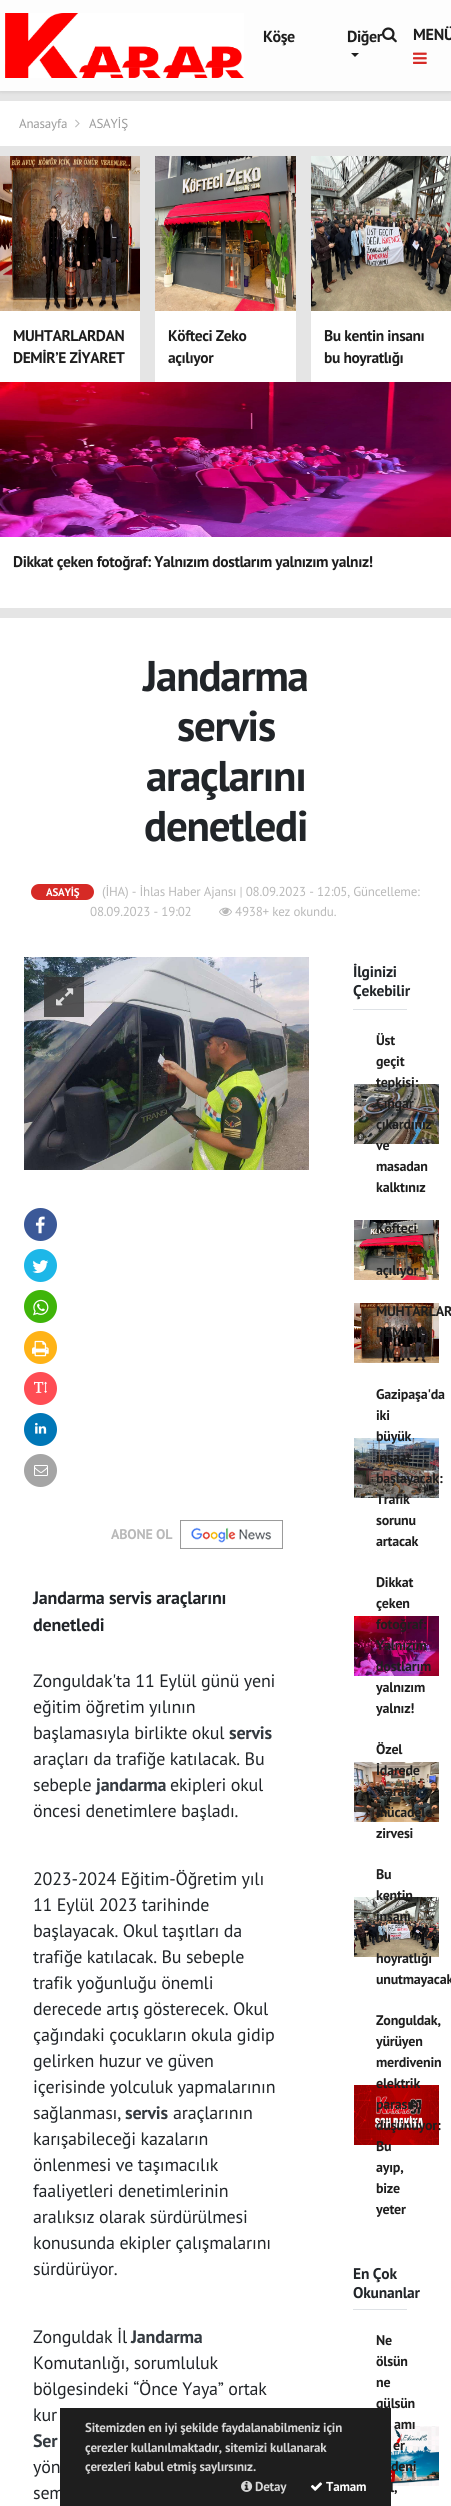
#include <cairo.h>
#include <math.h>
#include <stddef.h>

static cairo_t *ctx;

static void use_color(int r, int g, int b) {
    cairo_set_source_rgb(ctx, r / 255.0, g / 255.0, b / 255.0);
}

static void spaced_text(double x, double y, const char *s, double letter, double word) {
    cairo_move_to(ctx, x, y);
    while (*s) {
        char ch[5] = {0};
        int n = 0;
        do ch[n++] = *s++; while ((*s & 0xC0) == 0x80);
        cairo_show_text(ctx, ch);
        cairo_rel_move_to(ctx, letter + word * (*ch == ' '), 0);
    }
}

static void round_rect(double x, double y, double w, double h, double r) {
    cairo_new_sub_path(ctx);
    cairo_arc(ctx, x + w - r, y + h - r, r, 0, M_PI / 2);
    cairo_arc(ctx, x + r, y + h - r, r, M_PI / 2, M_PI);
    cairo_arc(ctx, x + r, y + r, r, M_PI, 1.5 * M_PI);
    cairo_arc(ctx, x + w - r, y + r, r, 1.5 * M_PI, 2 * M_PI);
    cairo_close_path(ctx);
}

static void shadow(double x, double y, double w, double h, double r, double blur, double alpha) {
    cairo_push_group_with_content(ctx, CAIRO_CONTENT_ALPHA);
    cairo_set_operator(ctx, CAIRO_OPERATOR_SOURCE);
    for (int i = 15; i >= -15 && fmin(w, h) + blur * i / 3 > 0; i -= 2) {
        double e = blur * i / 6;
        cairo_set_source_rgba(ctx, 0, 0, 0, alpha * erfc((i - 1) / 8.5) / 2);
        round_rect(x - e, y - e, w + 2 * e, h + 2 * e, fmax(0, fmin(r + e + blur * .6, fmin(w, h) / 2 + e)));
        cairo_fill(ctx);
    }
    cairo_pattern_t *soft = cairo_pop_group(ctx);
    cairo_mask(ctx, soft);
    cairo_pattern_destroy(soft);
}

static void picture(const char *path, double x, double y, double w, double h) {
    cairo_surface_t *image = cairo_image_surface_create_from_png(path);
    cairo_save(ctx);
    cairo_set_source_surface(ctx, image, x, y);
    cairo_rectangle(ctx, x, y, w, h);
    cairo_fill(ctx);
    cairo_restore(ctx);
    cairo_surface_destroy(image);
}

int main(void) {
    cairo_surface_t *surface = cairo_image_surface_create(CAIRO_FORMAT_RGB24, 451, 2506);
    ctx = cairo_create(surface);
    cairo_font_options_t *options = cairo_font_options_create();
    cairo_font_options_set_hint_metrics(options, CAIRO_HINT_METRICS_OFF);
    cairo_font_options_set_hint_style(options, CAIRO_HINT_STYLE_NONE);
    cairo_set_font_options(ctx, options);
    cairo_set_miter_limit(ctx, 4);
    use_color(229, 229, 229);
    cairo_paint(ctx);
    use_color(0, 0, 0);
    shadow(0, 0, 451, 91, 0, 2.5, 0.15);
    use_color(253, 253, 253);
    cairo_rectangle(ctx, 0, 0, 451, 91);
    cairo_fill(ctx);
    picture("img1.png", 5, 13, 239, 65);
    cairo_select_font_face(ctx, "PT Sans", CAIRO_FONT_SLANT_NORMAL, CAIRO_FONT_WEIGHT_BOLD);
    cairo_set_font_size(ctx, 16);
    use_color(30, 30, 30);
    spaced_text(263, 42, "Köşe", -0.4, 0);
    picture("img2.png", 382, 27, 15, 16);
    spaced_text(347, 42, "Diğer", -0.4, 0);
    cairo_new_path(ctx);
    cairo_move_to(ctx, 351, 53);
    cairo_line_to(ctx, 359, 53);
    cairo_line_to(ctx, 355, 57);
    cairo_close_path(ctx);
    cairo_fill(ctx);
    spaced_text(413, 40, "MENÜ", -0.2, 0);
    picture("img3.png", 413, 52, 14, 12);
    use_color(255, 255, 255);
    cairo_rectangle(ctx, 0, 101, 451, 45);
    cairo_fill(ctx);
    cairo_select_font_face(ctx, "PT Sans", CAIRO_FONT_SLANT_NORMAL, CAIRO_FONT_WEIGHT_NORMAL);
    cairo_set_font_size(ctx, 13);
    use_color(155, 155, 155);
    spaced_text(19, 128, "Anasayfa", -0.2, 0);
    picture("img4.png", 75, 119, 5, 9);
    spaced_text(89, 128, "ASAYİŞ", -0.2, 0);
    use_color(255, 255, 255);
    cairo_rectangle(ctx, 0, 311, 140, 71);
    cairo_fill(ctx);
    picture("img5.png", 0, 156, 140, 155);
    cairo_select_font_face(ctx, "PT Sans", CAIRO_FONT_SLANT_NORMAL, CAIRO_FONT_WEIGHT_BOLD);
    cairo_set_font_size(ctx, 15.5);
    use_color(30, 30, 30);
    spaced_text(13, 341, "MUHTARLARDAN", -0.4, 0);
    spaced_text(13, 363, "DEMİR’E ZİYARET", -0.4, 0);
    use_color(255, 255, 255);
    cairo_rectangle(ctx, 155, 311, 141, 71);
    cairo_fill(ctx);
    picture("img6.png", 155, 156, 141, 155);
    use_color(30, 30, 30);
    spaced_text(168, 341, "Köfteci Zeko", -0.4, 0);
    cairo_save(ctx);
    cairo_rectangle(ctx, 155, 311, 141, 55);
    cairo_clip(ctx);
    spaced_text(168, 363, "açılıyor", -0.4, 0);
    cairo_restore(ctx);
    use_color(255, 255, 255);
    cairo_rectangle(ctx, 311, 311, 140, 71);
    cairo_fill(ctx);
    picture("img7.png", 311, 156, 140, 155);
    use_color(30, 30, 30);
    spaced_text(324, 341, "Bu kentin insanı", -0.4, 0);
    cairo_save(ctx);
    cairo_rectangle(ctx, 311, 311, 140, 55);
    cairo_clip(ctx);
    spaced_text(324, 363, "bu hoyratlığı", -0.4, 0);
    cairo_restore(ctx);
    use_color(255, 255, 255);
    cairo_rectangle(ctx, 0, 537, 451, 71);
    cairo_fill(ctx);
    picture("img8.png", 0, 382, 451, 155);
    use_color(30, 30, 30);
    spaced_text(13, 567, "Dikkat çeken fotoğraf: Yalnızım dostlarım yalnızım yalnız!", -0.4, 0);
    use_color(255, 255, 255);
    cairo_rectangle(ctx, 0, 618, 451, 1888);
    cairo_fill(ctx);
    cairo_set_font_size(ctx, 43);
    use_color(33, 37, 41);
    spaced_text(143, 691, "Jandarma", -1.25, 0);
    spaced_text(177, 741, "servis", -1.25, 0);
    spaced_text(146, 791, "araçlarını", -1.25, 0);
    spaced_text(144, 841, "denetledi", -1.25, 0);
    use_color(214, 42, 38);
    round_rect(31, 884, 63, 16, 8);
    cairo_fill(ctx);
    cairo_set_font_size(ctx, 11);
    use_color(255, 255, 255);
    spaced_text(46, 896, "ASAYİŞ", -0.2, 0);
    cairo_select_font_face(ctx, "PT Sans", CAIRO_FONT_SLANT_NORMAL, CAIRO_FONT_WEIGHT_NORMAL);
    cairo_set_font_size(ctx, 13);
    use_color(185, 185, 185);
    spaced_text(102, 896, "(İHA) - İhlas Haber Ajansı | 08.09.2023 - 12:05, Güncelleme:", -0.2, 0);
    spaced_text(90, 916, "08.09.2023 - 19:02", -0.2, 0);
    picture("img9.png", 219, 907, 13, 9);
    spaced_text(235, 916, "4938+ kez okundu.", -0.2, 0);
    picture("img10.png", 24, 957, 285, 213);
    cairo_set_source_rgba(ctx, 0.2, 0.2, 0.2, 0.8);
    cairo_rectangle(ctx, 44, 977, 40, 40);
    cairo_fill(ctx);
    picture("img11.png", 56, 988, 18, 18);
    use_color(59, 89, 152);
    cairo_arc(ctx, 40.5, 1224.5, 16.5, 0, 2 * M_PI);
    cairo_fill(ctx);
    picture("img12.png", 35, 1216, 10, 18);
    use_color(29, 183, 232);
    cairo_arc(ctx, 40.5, 1265.5, 16.5, 0, 2 * M_PI);
    cairo_fill(ctx);
    picture("img13.png", 32, 1260, 17, 13);
    use_color(63, 181, 9);
    cairo_arc(ctx, 40.5, 1306.5, 16.5, 0, 2 * M_PI);
    cairo_fill(ctx);
    picture("img14.png", 33, 1299, 16, 17);
    use_color(255, 179, 22);
    cairo_arc(ctx, 40.5, 1347.5, 16.5, 0, 2 * M_PI);
    cairo_fill(ctx);
    picture("img15.png", 32, 1340, 17, 17);
    use_color(255, 77, 84);
    cairo_arc(ctx, 40.5, 1388.5, 16.5, 0, 2 * M_PI);
    cairo_fill(ctx);
    picture("img16.png", 34, 1381, 13, 12);
    use_color(0, 119, 183);
    cairo_arc(ctx, 40.5, 1429.5, 16.5, 0, 2 * M_PI);
    cairo_fill(ctx);
    picture("img17.png", 35, 1422, 12, 12);
    use_color(165, 165, 165);
    cairo_arc(ctx, 40.5, 1470.5, 16.5, 0, 2 * M_PI);
    cairo_fill(ctx);
    picture("img18.png", 34, 1465, 14, 11);
    cairo_select_font_face(ctx, "PT Sans", CAIRO_FONT_SLANT_NORMAL, CAIRO_FONT_WEIGHT_BOLD);
    cairo_set_font_size(ctx, 14);
    use_color(185, 185, 185);
    spaced_text(111, 1539, "ABONE OL", -0.2, 0);
    picture("img19.png", 180, 1520, 103, 29);
    cairo_set_font_size(ctx, 18);
    use_color(33, 37, 41);
    spaced_text(33, 1604, "Jandarma servis araçlarını", -0.2, 0);
    spaced_text(33, 1631, "denetledi", -0.2, 0);
    cairo_select_font_face(ctx, "PT Sans", CAIRO_FONT_SLANT_NORMAL, CAIRO_FONT_WEIGHT_NORMAL);
    spaced_text(33, 1687, "Zonguldak'ta 11 Eylül günü yeni", -0.2, 0);
    spaced_text(33, 1713, "eğitim öğretim yılının", -0.2, 0);
    spaced_text(33, 1739, "başlamasıyla birlikte okul", -0.2, 0);
    cairo_select_font_face(ctx, "PT Sans", CAIRO_FONT_SLANT_NORMAL, CAIRO_FONT_WEIGHT_BOLD);
    use_color(52, 58, 64);
    spaced_text(229, 1739, "servis", -0.2, 0);
    cairo_select_font_face(ctx, "PT Sans", CAIRO_FONT_SLANT_NORMAL, CAIRO_FONT_WEIGHT_NORMAL);
    use_color(33, 37, 41);
    spaced_text(33, 1765, "araçları da trafiğe katılacak. Bu", -0.2, 0);
    spaced_text(33, 1791, "sebeple", -0.2, 0);
    cairo_select_font_face(ctx, "PT Sans", CAIRO_FONT_SLANT_NORMAL, CAIRO_FONT_WEIGHT_BOLD);
    use_color(52, 58, 64);
    spaced_text(96, 1791, "jandarma", -0.2, 0);
    cairo_select_font_face(ctx, "PT Sans", CAIRO_FONT_SLANT_NORMAL, CAIRO_FONT_WEIGHT_NORMAL);
    use_color(33, 37, 41);
    spaced_text(170, 1791, "ekipleri okul", -0.2, 0);
    spaced_text(33, 1817, "öncesi denetimlere başladı.", -0.2, 0);
    spaced_text(33, 1885, "2023-2024 Eğitim-Öğretim yılı", -0.2, 0);
    spaced_text(33, 1911, "11 Eylül 2023 tarihinde", -0.2, 0);
    spaced_text(33, 1937, "başlayacak. Okul taşıtları da", -0.2, 0);
    spaced_text(33, 1963, "trafiğe katılacak. Bu sebeple", -0.2, 0);
    spaced_text(33, 1989, "trafik yoğunluğu önemli", -0.2, 0);
    spaced_text(33, 2015, "derecede artış gösterecek. Okul", -0.2, 0);
    spaced_text(33, 2041, "çağındaki çocukların okula gidip", -0.2, 0);
    spaced_text(33, 2067, "gelirken huzur ve güven", -0.2, 0);
    spaced_text(33, 2093, "içerisinde yolculuk yapmalarının", -0.2, 0);
    spaced_text(33, 2119, "sağlanması,", -0.2, 0);
    cairo_select_font_face(ctx, "PT Sans", CAIRO_FONT_SLANT_NORMAL, CAIRO_FONT_WEIGHT_BOLD);
    use_color(52, 58, 64);
    spaced_text(125, 2119, "servis", -0.2, 0);
    cairo_select_font_face(ctx, "PT Sans", CAIRO_FONT_SLANT_NORMAL, CAIRO_FONT_WEIGHT_NORMAL);
    use_color(33, 37, 41);
    spaced_text(173, 2119, "araçlarının", -0.2, 0);
    spaced_text(33, 2145, "karışabileceği kazaların", -0.2, 0);
    spaced_text(33, 2171, "önlenmesi ve taşımacılık", -0.2, 0);
    spaced_text(33, 2197, "faaliyetleri denetimlerinin", -0.2, 0);
    spaced_text(33, 2223, "aralıksız olarak sürdürülmesi", -0.2, 0);
    spaced_text(33, 2249, "konusunda ekipler çalışmalarını", -0.2, 0);
    spaced_text(33, 2275, "sürdürüyor.", -0.2, 0);
    spaced_text(33, 2343, "Zonguldak İl", -0.2, 0);
    cairo_select_font_face(ctx, "PT Sans", CAIRO_FONT_SLANT_NORMAL, CAIRO_FONT_WEIGHT_BOLD);
    use_color(52, 58, 64);
    spaced_text(131, 2343, "Jandarma", -0.2, 0);
    cairo_select_font_face(ctx, "PT Sans", CAIRO_FONT_SLANT_NORMAL, CAIRO_FONT_WEIGHT_NORMAL);
    use_color(33, 37, 41);
    spaced_text(33, 2369, "Komutanlığı, sorumluluk", -0.2, 0);
    spaced_text(33, 2395, "bölgesindeki “Önce Yaya” ortak", -0.2, 0);
    spaced_text(33, 2421, "kur", -0.2, 0);
    cairo_select_font_face(ctx, "PT Sans", CAIRO_FONT_SLANT_NORMAL, CAIRO_FONT_WEIGHT_BOLD);
    use_color(52, 58, 64);
    spaced_text(33, 2447, "Ser", -0.2, 0);
    cairo_select_font_face(ctx, "PT Sans", CAIRO_FONT_SLANT_NORMAL, CAIRO_FONT_WEIGHT_NORMAL);
    use_color(33, 37, 41);
    spaced_text(33, 2473, "yön", -0.2, 0);
    spaced_text(33, 2499, "sem", -0.2, 0);
    use_color(222, 226, 230);
    cairo_rectangle(ctx, 353, 1009, 54, 1);
    cairo_fill(ctx);
    cairo_select_font_face(ctx, "PT Sans", CAIRO_FONT_SLANT_NORMAL, CAIRO_FONT_WEIGHT_BOLD);
    cairo_set_font_size(ctx, 15.5);
    use_color(33, 37, 41);
    spaced_text(353, 977, "İlginizi", -0.2, 0);
    spaced_text(353, 996, "Çekebilir", -0.2, 0);
    cairo_set_font_size(ctx, 14);
    use_color(30, 30, 30);
    spaced_text(376, 1045, "Üst", -0.2, 0);
    spaced_text(376, 1066, "geçit", -0.2, 0);
    picture("img20.png", 354, 1084, 85, 60);
    spaced_text(376, 1087, "tepkisi:", -0.2, 0);
    spaced_text(376, 1108, "Çıngar", -0.2, 0);
    spaced_text(376, 1129, "çıkardınız", -0.2, 0);
    spaced_text(376, 1150, "ve", -0.2, 0);
    spaced_text(376, 1171, "masadan", -0.2, 0);
    spaced_text(376, 1192, "kalktınız", -0.2, 0);
    picture("img21.png", 354, 1220, 85, 60);
    spaced_text(376, 1233, "Köfteci", -0.2, 0);
    spaced_text(376, 1275, "açılıyor", -0.2, 0);
    picture("img22.png", 354, 1303, 85, 60);
    spaced_text(376, 1316, "MUHTARLAR", -0.2, 0);
    spaced_text(376, 1337, "DEMİR’E", -0.2, 0);
    spaced_text(387, 1358, "Y", -0.2, 0);
    spaced_text(376, 1399, "Gazipaşa'da", -0.2, 0);
    spaced_text(376, 1420, "iki", -0.2, 0);
    picture("img23.png", 354, 1438, 85, 60);
    spaced_text(376, 1441, "büyük", -0.2, 0);
    spaced_text(376, 1462, "inşaat", -0.2, 0);
    spaced_text(376, 1483, "başlayacak:", -0.2, 0);
    spaced_text(376, 1504, "Trafik", -0.2, 0);
    spaced_text(376, 1525, "sorunu", -0.2, 0);
    spaced_text(376, 1546, "artacak", -0.2, 0);
    spaced_text(376, 1587, "Dikkat", -0.2, 0);
    spaced_text(376, 1608, "çeken", -0.2, 0);
    picture("img24.png", 354, 1616, 85, 60);
    spaced_text(376, 1629, "fotoğraf:", -0.2, 0);
    spaced_text(376, 1650, "Yalnızım", -0.2, 0);
    spaced_text(376, 1671, "dostlarım", -0.2, 0);
    spaced_text(376, 1692, "yalnızım", -0.2, 0);
    spaced_text(376, 1713, "yalnız!", -0.2, 0);
    spaced_text(376, 1754, "Özel", -0.2, 0);
    picture("img25.png", 354, 1762, 85, 60);
    spaced_text(376, 1775, "İdarede", -0.2, 0);
    spaced_text(376, 1796, "'karala", -0.2, 0);
    spaced_text(376, 1817, "mücadele'", -0.2, 0);
    spaced_text(376, 1838, "zirvesi", -0.2, 0);
    spaced_text(376, 1879, "Bu", -0.2, 0);
    picture("img26.png", 354, 1897, 85, 60);
    spaced_text(376, 1900, "kentin", -0.2, 0);
    spaced_text(376, 1921, "insanı", -0.2, 0);
    spaced_text(376, 1942, "bu", -0.2, 0);
    spaced_text(376, 1963, "hoyratlığı", -0.2, 0);
    spaced_text(376, 1984, "unutmayacak", -0.2, 0);
    spaced_text(376, 2025, "Zonguldak,", -0.2, 0);
    spaced_text(376, 2046, "yürüyen", -0.2, 0);
    spaced_text(376, 2067, "merdivenin", -0.2, 0);
    picture("img27.png", 354, 2085, 85, 60);
    spaced_text(376, 2088, "elektrik", -0.2, 0);
    spaced_text(376, 2109, "parasını", -0.2, 0);
    spaced_text(376, 2130, "düşünüyor:", -0.2, 0);
    spaced_text(376, 2151, "Bu", -0.2, 0);
    spaced_text(376, 2172, "ayıp,", -0.2, 0);
    spaced_text(376, 2193, "bize", -0.2, 0);
    spaced_text(376, 2214, "yeter", -0.2, 0);
    use_color(222, 226, 230);
    cairo_rectangle(ctx, 353, 2309, 54, 1);
    cairo_fill(ctx);
    cairo_set_font_size(ctx, 15.5);
    use_color(33, 37, 41);
    spaced_text(353, 2279, "En Çok", -0.2, 0);
    spaced_text(353, 2298, "Okunanlar", -0.2, 0);
    cairo_set_font_size(ctx, 14);
    use_color(30, 30, 30);
    spaced_text(376, 2345, "Ne", -0.2, 0);
    spaced_text(376, 2366, "ölsün", -0.2, 0);
    spaced_text(376, 2387, "ne", -0.2, 0);
    spaced_text(376, 2408, "gülsün", -0.2, 0);
    picture("img28.png", 391, 2426, 48, 60);
    spaced_text(394, 2429, "amı", -0.2, 0);
    spaced_text(393, 2450, "er", -0.2, 0);
    spaced_text(391, 2471, "deni", -0.2, 0);
    spaced_text(390, 2492, "l,", -0.2, 0);
    cairo_rectangle(ctx, 60, 2408, 331, 98);
    cairo_fill(ctx);
    cairo_set_font_size(ctx, 13);
    use_color(215, 215, 215);
    spaced_text(85, 2432, "Sitemizden en iyi şekilde faydalanabilmeniz için", -0.2, 0);
    spaced_text(85, 2452, "çerezler kullanılmaktadır, sitemizi kullanarak", -0.2, 0);
    spaced_text(85, 2471, "çerezleri kabul etmiş saylırsınız.", -0.2, 0);
    picture("img29.png", 241, 2480, 12, 12);
    spaced_text(255, 2491, "Detay", -0.2, 0);
    picture("img30.png", 310, 2482, 13, 9);
    use_color(255, 255, 255);
    spaced_text(326, 2491, "Tamam", -0.2, 0);
    cairo_surface_write_to_png(surface, "result.png");
    cairo_font_options_destroy(options);
    cairo_destroy(ctx);
    cairo_surface_destroy(surface);
    return 0;
}
